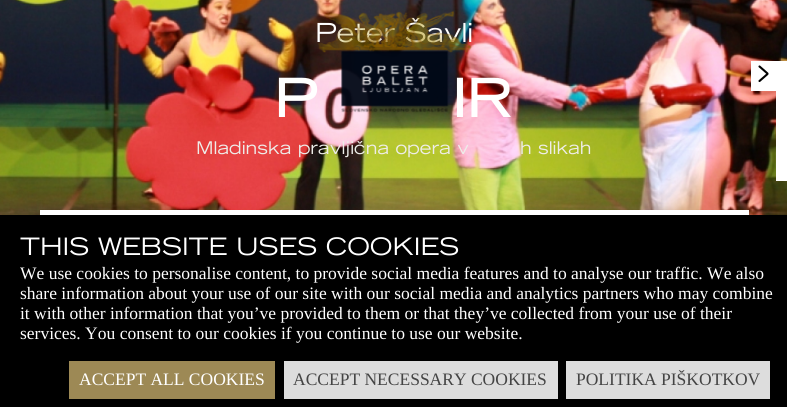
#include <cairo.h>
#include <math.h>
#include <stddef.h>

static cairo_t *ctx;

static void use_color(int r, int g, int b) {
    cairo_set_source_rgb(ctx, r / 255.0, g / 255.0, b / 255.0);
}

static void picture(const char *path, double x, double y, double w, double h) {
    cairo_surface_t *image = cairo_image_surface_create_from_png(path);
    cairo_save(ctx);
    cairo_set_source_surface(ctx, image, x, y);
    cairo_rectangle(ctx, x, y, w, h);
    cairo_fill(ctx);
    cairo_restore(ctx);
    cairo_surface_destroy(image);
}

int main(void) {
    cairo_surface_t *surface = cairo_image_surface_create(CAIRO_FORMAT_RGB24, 787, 407);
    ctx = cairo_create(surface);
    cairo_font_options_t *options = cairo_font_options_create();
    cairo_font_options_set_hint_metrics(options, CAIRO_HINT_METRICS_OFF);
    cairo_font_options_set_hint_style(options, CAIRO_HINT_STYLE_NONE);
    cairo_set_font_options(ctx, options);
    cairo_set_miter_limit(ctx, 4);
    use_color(255, 255, 255);
    cairo_paint(ctx);
    picture("img2.png", 0, 0, 787, 215);
    cairo_select_font_face(ctx, "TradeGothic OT", CAIRO_FONT_SLANT_NORMAL, CAIRO_FONT_WEIGHT_NORMAL);
    cairo_set_font_size(ctx, 26.25);
    use_color(255, 255, 255);
    cairo_move_to(ctx, 315, 42);
    cairo_show_text(ctx, "Peter Šavli");
    cairo_select_font_face(ctx, "TradeGothic OT", CAIRO_FONT_SLANT_NORMAL, CAIRO_FONT_WEIGHT_BOLD);
    cairo_set_font_size(ctx, 52);
    cairo_move_to(ctx, 452, 117);
    cairo_show_text(ctx, "IR");
    picture("img1.png", 318, 11, 154, 102);
    cairo_move_to(ctx, 274, 117);
    cairo_show_text(ctx, "P");
    cairo_select_font_face(ctx, "TradeGothic OT", CAIRO_FONT_SLANT_NORMAL, CAIRO_FONT_WEIGHT_NORMAL);
    cairo_set_font_size(ctx, 17.5);
    use_color(238, 237, 233);
    cairo_move_to(ctx, 196, 154);
    cairo_show_text(ctx, "Mladinska pravljična opera v");
    cairo_move_to(ctx, 520, 154);
    cairo_show_text(ctx, "h slikah");
    use_color(255, 255, 255);
    cairo_rectangle(ctx, 40, 210, 709, 5);
    cairo_fill(ctx);
    cairo_rectangle(ctx, 751, 61, 25, 30);
    cairo_fill(ctx);
    cairo_new_path(ctx);
    cairo_move_to(ctx, 759.5, 66.5);
    cairo_line_to(ctx, 767.5, 73.5);
    cairo_curve_to(ctx, 767.5, 73.5, 767.5, 74, 767.5, 74);
    cairo_line_to(ctx, 759.5, 81);
    use_color(0, 0, 0);
    cairo_set_line_width(ctx, 2.1);
    cairo_set_line_cap(ctx, CAIRO_LINE_CAP_ROUND);
    cairo_set_line_join(ctx, CAIRO_LINE_JOIN_ROUND);
    cairo_stroke(ctx);
    use_color(255, 255, 255);
    cairo_rectangle(ctx, 776, 61, 11, 120);
    cairo_fill(ctx);
    use_color(0, 0, 0);
    cairo_rectangle(ctx, 0, 215, 787, 192);
    cairo_fill(ctx);
    cairo_set_font_size(ctx, 24);
    use_color(255, 255, 255);
    cairo_move_to(ctx, 20, 255);
    cairo_show_text(ctx, "THIS WEBSITE USES COOKIES");
    cairo_select_font_face(ctx, "Liberation Serif", CAIRO_FONT_SLANT_NORMAL, CAIRO_FONT_WEIGHT_NORMAL);
    cairo_set_font_size(ctx, 17.5);
    cairo_move_to(ctx, 20, 279);
    cairo_show_text(ctx, "We use cookies to personalise content, to provide social media features and to analyse our traffic. We also");
    cairo_move_to(ctx, 20, 299);
    cairo_show_text(ctx, "share information about your use of our site with our social media and analytics partners who may combine");
    cairo_move_to(ctx, 20, 319);
    cairo_show_text(ctx, "it with other information that you’ve provided to them or that they’ve collected from your use of their");
    cairo_move_to(ctx, 20, 339);
    cairo_show_text(ctx, "services. You consent to our cookies if you continue to use our website.");
    use_color(157, 137, 85);
    cairo_rectangle(ctx, 69, 361, 206, 38);
    cairo_fill(ctx);
    use_color(255, 255, 255);
    cairo_move_to(ctx, 79, 385);
    cairo_show_text(ctx, "ACCEPT ALL COOKIES");
    use_color(221, 221, 221);
    cairo_rectangle(ctx, 284, 361, 274, 38);
    cairo_fill(ctx);
    use_color(68, 68, 68);
    cairo_move_to(ctx, 293, 385);
    cairo_show_text(ctx, "ACCEPT NECESSARY COOKIES");
    use_color(221, 221, 221);
    cairo_rectangle(ctx, 566, 361, 204, 38);
    cairo_fill(ctx);
    use_color(68, 68, 68);
    cairo_move_to(ctx, 576, 385);
    cairo_show_text(ctx, "POLITIKA PIŠKOTKOV");
    cairo_surface_write_to_png(surface, "result.png");
    cairo_font_options_destroy(options);
    cairo_destroy(ctx);
    cairo_surface_destroy(surface);
    return 0;
}
